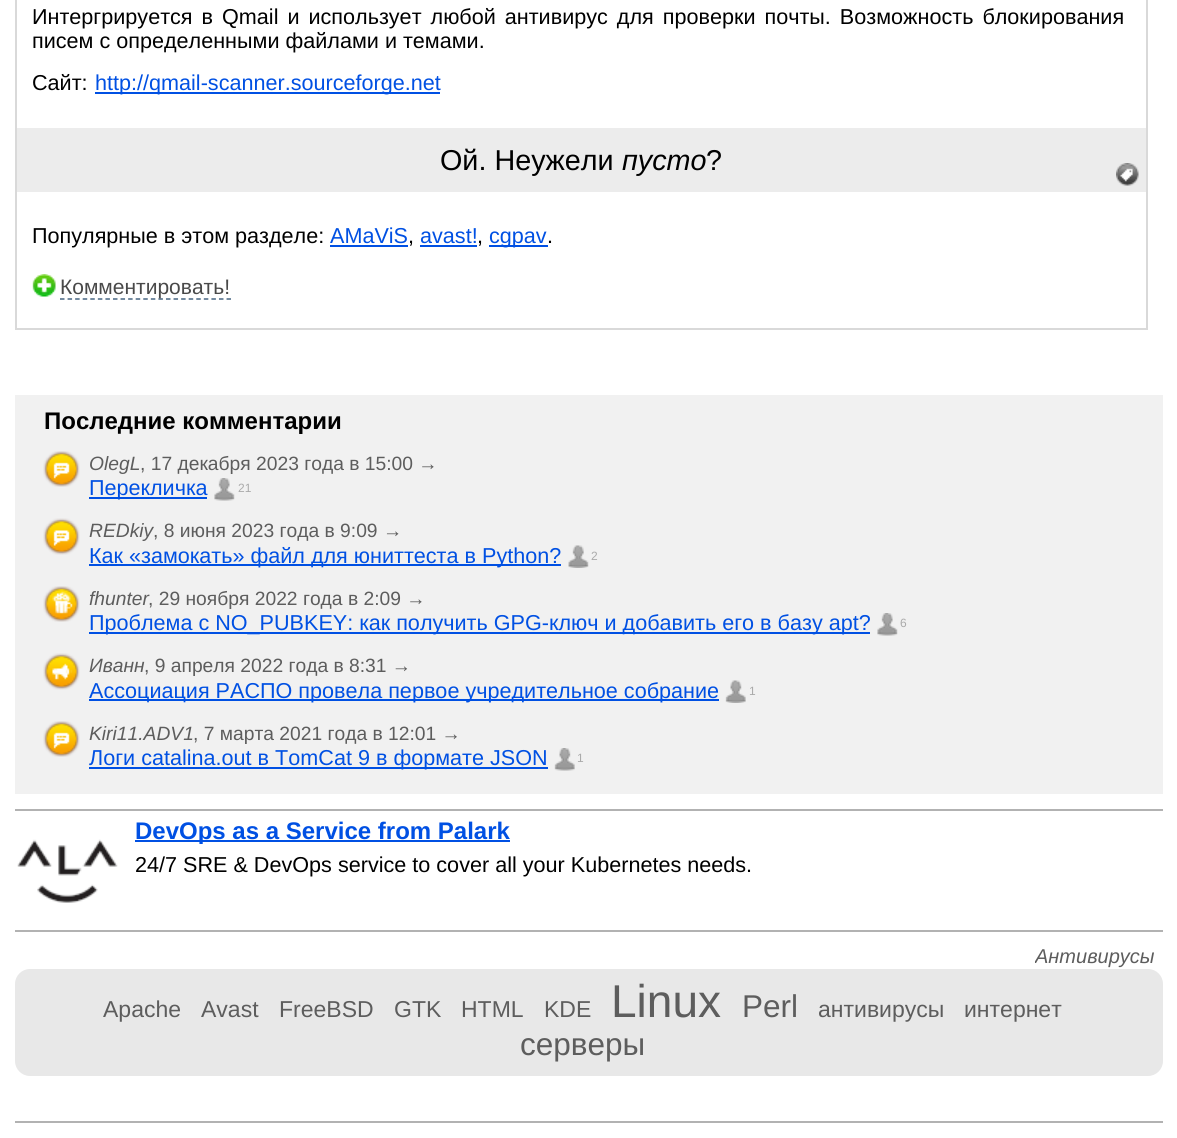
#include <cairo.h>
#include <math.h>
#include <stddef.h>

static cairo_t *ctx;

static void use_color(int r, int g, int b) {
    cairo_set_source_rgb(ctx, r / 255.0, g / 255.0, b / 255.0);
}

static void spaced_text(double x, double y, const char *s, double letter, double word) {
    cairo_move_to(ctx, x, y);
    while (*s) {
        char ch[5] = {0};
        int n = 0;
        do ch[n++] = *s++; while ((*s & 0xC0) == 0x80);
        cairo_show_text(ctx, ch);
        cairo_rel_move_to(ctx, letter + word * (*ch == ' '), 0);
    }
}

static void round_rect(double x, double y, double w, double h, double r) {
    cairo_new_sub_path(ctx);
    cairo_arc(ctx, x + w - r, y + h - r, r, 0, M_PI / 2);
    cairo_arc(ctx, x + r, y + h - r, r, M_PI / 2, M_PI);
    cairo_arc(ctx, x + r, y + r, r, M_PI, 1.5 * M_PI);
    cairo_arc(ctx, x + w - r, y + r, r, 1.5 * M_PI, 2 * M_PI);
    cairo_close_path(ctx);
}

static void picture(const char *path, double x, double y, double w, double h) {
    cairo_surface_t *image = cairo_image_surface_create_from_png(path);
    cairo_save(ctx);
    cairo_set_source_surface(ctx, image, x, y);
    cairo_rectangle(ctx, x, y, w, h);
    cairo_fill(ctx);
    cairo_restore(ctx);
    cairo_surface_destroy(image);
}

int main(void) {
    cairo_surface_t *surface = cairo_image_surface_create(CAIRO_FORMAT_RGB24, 1177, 1138);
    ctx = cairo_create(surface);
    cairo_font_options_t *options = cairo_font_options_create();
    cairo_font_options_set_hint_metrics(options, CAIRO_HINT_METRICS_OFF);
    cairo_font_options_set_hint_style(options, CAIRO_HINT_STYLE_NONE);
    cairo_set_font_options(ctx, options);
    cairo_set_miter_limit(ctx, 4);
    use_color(255, 255, 255);
    cairo_paint(ctx);
    cairo_rectangle(ctx, 16, -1, 1131, 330);
    use_color(217, 217, 217);
    cairo_stroke(ctx);
    cairo_select_font_face(ctx, "Liberation Sans", CAIRO_FONT_SLANT_NORMAL, CAIRO_FONT_WEIGHT_NORMAL);
    cairo_set_font_size(ctx, 21.6);
    use_color(0, 0, 0);
    spaced_text(32, 24, "Интергрируется в Qmail и использует любой антивирус для проверки почты. Возможность блокирования", 0, 3);
    cairo_move_to(ctx, 32, 48);
    cairo_show_text(ctx, "писем с определенными файлами и темами.");
    cairo_move_to(ctx, 32, 90);
    cairo_show_text(ctx, "Сайт:");
    use_color(0, 80, 227);
    cairo_rectangle(ctx, 95, 92, 345, 2);
    cairo_fill(ctx);
    cairo_move_to(ctx, 95, 90);
    cairo_show_text(ctx, "http://qmail-scanner.sourceforge.net");
    use_color(236, 236, 236);
    cairo_rectangle(ctx, 17, 128, 1129, 64);
    cairo_fill(ctx);
    cairo_set_font_size(ctx, 28.75);
    use_color(0, 0, 0);
    cairo_move_to(ctx, 440, 170);
    cairo_show_text(ctx, "Ой. Неужели");
    cairo_select_font_face(ctx, "Liberation Sans", CAIRO_FONT_SLANT_ITALIC, CAIRO_FONT_WEIGHT_NORMAL);
    cairo_move_to(ctx, 622, 170);
    cairo_show_text(ctx, "пусто");
    cairo_select_font_face(ctx, "Liberation Sans", CAIRO_FONT_SLANT_NORMAL, CAIRO_FONT_WEIGHT_NORMAL);
    cairo_move_to(ctx, 706, 170);
    cairo_show_text(ctx, "?");
    picture("img1.png", 1116, 163, 23, 23);
    cairo_set_font_size(ctx, 21.6);
    cairo_move_to(ctx, 32, 243);
    cairo_show_text(ctx, "Популярные в этом разделе:");
    use_color(0, 80, 227);
    cairo_move_to(ctx, 330, 243);
    cairo_show_text(ctx, "AMaViS");
    cairo_rectangle(ctx, 330, 245, 78, 2);
    cairo_fill(ctx);
    use_color(0, 0, 0);
    cairo_move_to(ctx, 408, 243);
    cairo_show_text(ctx, ",");
    use_color(0, 80, 227);
    cairo_move_to(ctx, 420, 243);
    cairo_show_text(ctx, "avast!");
    cairo_rectangle(ctx, 420, 245, 57, 2);
    cairo_fill(ctx);
    use_color(0, 0, 0);
    cairo_move_to(ctx, 477, 243);
    cairo_show_text(ctx, ",");
    use_color(0, 80, 227);
    cairo_rectangle(ctx, 489, 245, 59, 2);
    cairo_fill(ctx);
    cairo_move_to(ctx, 489, 243);
    cairo_show_text(ctx, "cgpav");
    use_color(0, 0, 0);
    cairo_move_to(ctx, 547, 243);
    cairo_show_text(ctx, ".");
    picture("img2.png", 32, 274, 24, 23);
    cairo_new_path(ctx);
    cairo_move_to(ctx, 60, 299);
    cairo_line_to(ctx, 231, 299);
    use_color(70, 101, 130);
    cairo_set_line_width(ctx, 1.5);
    cairo_set_dash(ctx, (double[]){4.5, 3.07}, 2, 0);
    cairo_stroke(ctx);
    cairo_set_font_size(ctx, 21);
    use_color(73, 73, 73);
    cairo_move_to(ctx, 60, 294);
    cairo_show_text(ctx, "Комментировать!");
    use_color(241, 241, 241);
    cairo_rectangle(ctx, 15, 395, 1148, 399);
    cairo_fill(ctx);
    cairo_select_font_face(ctx, "Liberation Sans", CAIRO_FONT_SLANT_NORMAL, CAIRO_FONT_WEIGHT_BOLD);
    cairo_set_font_size(ctx, 24);
    use_color(0, 0, 0);
    cairo_move_to(ctx, 44, 429);
    cairo_show_text(ctx, "Последние комментарии");
    picture("img3.png", 43, 451, 37, 36);
    cairo_select_font_face(ctx, "Liberation Sans", CAIRO_FONT_SLANT_ITALIC, CAIRO_FONT_WEIGHT_NORMAL);
    cairo_set_font_size(ctx, 19.25);
    use_color(93, 93, 93);
    cairo_move_to(ctx, 89, 470);
    cairo_show_text(ctx, "OlegL");
    cairo_select_font_face(ctx, "Liberation Sans", CAIRO_FONT_SLANT_NORMAL, CAIRO_FONT_WEIGHT_NORMAL);
    cairo_move_to(ctx, 140, 470);
    cairo_show_text(ctx, ", 17 декабря 2023 года в 15:00 →");
    use_color(0, 80, 227);
    cairo_rectangle(ctx, 89, 497, 118, 2);
    cairo_fill(ctx);
    cairo_set_font_size(ctx, 21.6);
    cairo_move_to(ctx, 89, 495);
    cairo_show_text(ctx, "Перекличка");
    picture("img4.png", 214, 478, 21, 23);
    cairo_set_font_size(ctx, 12);
    use_color(170, 170, 170);
    cairo_move_to(ctx, 238, 492);
    cairo_show_text(ctx, "21");
    picture("img5.png", 43, 518, 37, 37);
    cairo_select_font_face(ctx, "Liberation Sans", CAIRO_FONT_SLANT_ITALIC, CAIRO_FONT_WEIGHT_NORMAL);
    cairo_set_font_size(ctx, 19.25);
    use_color(93, 93, 93);
    cairo_move_to(ctx, 89, 537);
    cairo_show_text(ctx, "REDkiy");
    cairo_select_font_face(ctx, "Liberation Sans", CAIRO_FONT_SLANT_NORMAL, CAIRO_FONT_WEIGHT_NORMAL);
    cairo_move_to(ctx, 153, 537);
    cairo_show_text(ctx, ", 8 июня 2023 года в 9:09 →");
    use_color(0, 80, 227);
    cairo_rectangle(ctx, 89, 564, 472, 2);
    cairo_fill(ctx);
    cairo_set_font_size(ctx, 21.6);
    cairo_move_to(ctx, 89, 563);
    cairo_show_text(ctx, "Как «замокать» файл для юниттеста в Python?");
    picture("img6.png", 568, 545, 21, 23);
    cairo_set_font_size(ctx, 12);
    use_color(170, 170, 170);
    cairo_move_to(ctx, 591, 560);
    cairo_show_text(ctx, "2");
    picture("img7.png", 43, 586, 37, 36);
    cairo_select_font_face(ctx, "Liberation Sans", CAIRO_FONT_SLANT_ITALIC, CAIRO_FONT_WEIGHT_NORMAL);
    cairo_set_font_size(ctx, 19.25);
    use_color(93, 93, 93);
    cairo_move_to(ctx, 89, 605);
    cairo_show_text(ctx, "fhunter");
    cairo_select_font_face(ctx, "Liberation Sans", CAIRO_FONT_SLANT_NORMAL, CAIRO_FONT_WEIGHT_NORMAL);
    cairo_move_to(ctx, 148, 605);
    cairo_show_text(ctx, ", 29 ноября 2022 года в 2:09 →");
    use_color(0, 80, 227);
    cairo_rectangle(ctx, 89, 632, 781, 2);
    cairo_fill(ctx);
    cairo_set_font_size(ctx, 21.6);
    cairo_move_to(ctx, 89, 630);
    cairo_show_text(ctx, "Проблема с NO_PUBKEY: как получить GPG-ключ и добавить его в базу apt?");
    picture("img4.png", 877, 613, 21, 23);
    cairo_set_font_size(ctx, 12);
    use_color(170, 170, 170);
    cairo_move_to(ctx, 900, 627);
    cairo_show_text(ctx, "6");
    picture("img8.png", 43, 653, 37, 37);
    cairo_select_font_face(ctx, "Liberation Sans", CAIRO_FONT_SLANT_ITALIC, CAIRO_FONT_WEIGHT_NORMAL);
    cairo_set_font_size(ctx, 19.25);
    use_color(93, 93, 93);
    cairo_move_to(ctx, 89, 672);
    cairo_show_text(ctx, "Иванн");
    cairo_select_font_face(ctx, "Liberation Sans", CAIRO_FONT_SLANT_NORMAL, CAIRO_FONT_WEIGHT_NORMAL);
    cairo_move_to(ctx, 144, 672);
    cairo_show_text(ctx, ", 9 апреля 2022 года в 8:31 →");
    use_color(0, 80, 227);
    cairo_rectangle(ctx, 89, 699, 630, 2);
    cairo_fill(ctx);
    cairo_set_font_size(ctx, 21.6);
    cairo_move_to(ctx, 89, 698);
    cairo_show_text(ctx, "Ассоциация РАСПО провела первое учредительное собрание");
    picture("img9.png", 725, 680, 21, 23);
    cairo_set_font_size(ctx, 12);
    use_color(170, 170, 170);
    cairo_move_to(ctx, 749, 695);
    cairo_show_text(ctx, "1");
    picture("img3.png", 43, 721, 37, 36);
    cairo_select_font_face(ctx, "Liberation Sans", CAIRO_FONT_SLANT_ITALIC, CAIRO_FONT_WEIGHT_NORMAL);
    cairo_set_font_size(ctx, 19.25);
    use_color(93, 93, 93);
    cairo_move_to(ctx, 89, 740);
    cairo_show_text(ctx, "Kiri11.ADV1");
    cairo_select_font_face(ctx, "Liberation Sans", CAIRO_FONT_SLANT_NORMAL, CAIRO_FONT_WEIGHT_NORMAL);
    cairo_move_to(ctx, 193, 740);
    cairo_show_text(ctx, ", 7 марта 2021 года в 12:01 →");
    use_color(0, 80, 227);
    cairo_rectangle(ctx, 89, 767, 459, 2);
    cairo_fill(ctx);
    cairo_set_font_size(ctx, 21.6);
    cairo_move_to(ctx, 89, 765);
    cairo_show_text(ctx, "Логи catalina.out в TomCat 9 в формате JSON");
    picture("img10.png", 554, 748, 21, 23);
    cairo_set_font_size(ctx, 12);
    use_color(170, 170, 170);
    cairo_move_to(ctx, 577, 762);
    cairo_show_text(ctx, "1");
    use_color(178, 178, 178);
    cairo_rectangle(ctx, 15, 809, 1148, 2);
    cairo_fill(ctx);
    cairo_rectangle(ctx, 15, 930, 1148, 2);
    cairo_fill(ctx);
    use_color(0, 80, 227);
    cairo_rectangle(ctx, 135, 840, 375, 2);
    cairo_fill(ctx);
    cairo_select_font_face(ctx, "Liberation Sans", CAIRO_FONT_SLANT_NORMAL, CAIRO_FONT_WEIGHT_BOLD);
    cairo_set_font_size(ctx, 24);
    cairo_move_to(ctx, 135, 839);
    cairo_show_text(ctx, "DevOps as a Service from Palark");
    picture("img11.png", 17, 839, 101, 64);
    cairo_select_font_face(ctx, "Liberation Sans", CAIRO_FONT_SLANT_NORMAL, CAIRO_FONT_WEIGHT_NORMAL);
    cairo_set_font_size(ctx, 21.6);
    use_color(0, 0, 0);
    cairo_move_to(ctx, 135, 872);
    cairo_show_text(ctx, "24/7 SRE & DevOps service to cover all your Kubernetes needs.");
    use_color(232, 232, 232);
    round_rect(15, 969, 1148, 107, 15);
    cairo_fill(ctx);
    cairo_save(ctx);
    cairo_rectangle(ctx, 1035, 939, 128, 39);
    cairo_clip(ctx);
    cairo_select_font_face(ctx, "Liberation Sans", CAIRO_FONT_SLANT_ITALIC, CAIRO_FONT_WEIGHT_NORMAL);
    cairo_set_font_size(ctx, 20);
    use_color(93, 93, 93);
    cairo_move_to(ctx, 1035, 963);
    cairo_show_text(ctx, "Антивирусы");
    cairo_restore(ctx);
    cairo_set_font_size(ctx, 23);
    use_color(93, 93, 93);
    cairo_move_to(ctx, 103, 1017);
    cairo_show_text(ctx, "Apache");
    cairo_move_to(ctx, 201, 1017);
    cairo_show_text(ctx, "Avast");
    cairo_move_to(ctx, 279, 1017);
    cairo_show_text(ctx, "FreeBSD");
    cairo_move_to(ctx, 394, 1017);
    cairo_show_text(ctx, "GTK");
    cairo_move_to(ctx, 461, 1017);
    cairo_show_text(ctx, "HTML");
    cairo_move_to(ctx, 544, 1017);
    cairo_show_text(ctx, "KDE");
    cairo_set_font_size(ctx, 46);
    cairo_move_to(ctx, 611, 1017);
    cairo_show_text(ctx, "Linux");
    cairo_set_font_size(ctx, 31.5);
    cairo_move_to(ctx, 742, 1017);
    cairo_show_text(ctx, "Perl");
    cairo_set_font_size(ctx, 23);
    cairo_move_to(ctx, 818, 1017);
    cairo_show_text(ctx, "антивирусы");
    cairo_move_to(ctx, 964, 1017);
    cairo_show_text(ctx, "интернет");
    cairo_set_font_size(ctx, 31.5);
    cairo_move_to(ctx, 520, 1055);
    cairo_show_text(ctx, "серверы");
    use_color(178, 178, 178);
    cairo_rectangle(ctx, 15, 1121, 1148, 2);
    cairo_fill(ctx);
    cairo_surface_write_to_png(surface, "result.png");
    cairo_font_options_destroy(options);
    cairo_destroy(ctx);
    cairo_surface_destroy(surface);
    return 0;
}
